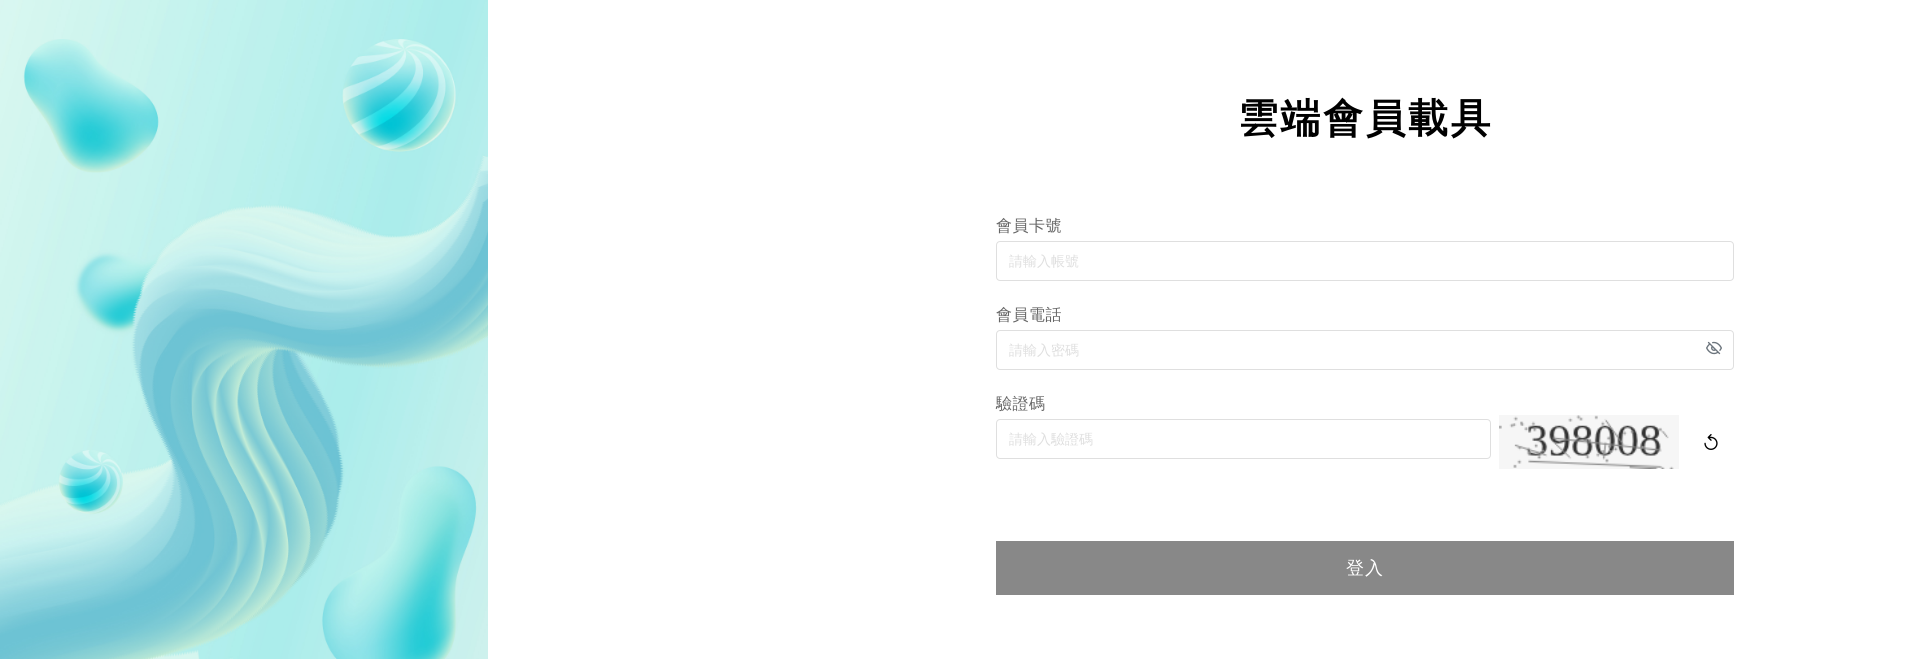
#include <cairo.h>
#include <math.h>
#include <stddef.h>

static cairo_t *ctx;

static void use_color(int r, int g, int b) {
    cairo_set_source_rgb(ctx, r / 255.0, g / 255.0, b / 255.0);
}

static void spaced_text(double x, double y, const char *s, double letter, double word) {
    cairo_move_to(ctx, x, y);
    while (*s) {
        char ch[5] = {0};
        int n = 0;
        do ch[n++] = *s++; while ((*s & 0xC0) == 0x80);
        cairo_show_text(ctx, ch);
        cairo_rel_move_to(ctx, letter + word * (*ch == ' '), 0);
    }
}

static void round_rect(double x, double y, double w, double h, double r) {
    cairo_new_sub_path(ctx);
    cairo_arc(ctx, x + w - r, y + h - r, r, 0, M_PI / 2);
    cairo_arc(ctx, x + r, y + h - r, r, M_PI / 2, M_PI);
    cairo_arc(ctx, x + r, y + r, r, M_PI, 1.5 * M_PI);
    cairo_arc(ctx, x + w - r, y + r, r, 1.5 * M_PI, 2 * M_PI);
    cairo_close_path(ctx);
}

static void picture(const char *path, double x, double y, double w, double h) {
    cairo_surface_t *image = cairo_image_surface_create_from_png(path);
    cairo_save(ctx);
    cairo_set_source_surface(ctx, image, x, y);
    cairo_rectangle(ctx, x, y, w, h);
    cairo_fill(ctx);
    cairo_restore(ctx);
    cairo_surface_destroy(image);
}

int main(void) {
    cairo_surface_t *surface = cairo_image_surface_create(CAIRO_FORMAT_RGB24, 1927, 659);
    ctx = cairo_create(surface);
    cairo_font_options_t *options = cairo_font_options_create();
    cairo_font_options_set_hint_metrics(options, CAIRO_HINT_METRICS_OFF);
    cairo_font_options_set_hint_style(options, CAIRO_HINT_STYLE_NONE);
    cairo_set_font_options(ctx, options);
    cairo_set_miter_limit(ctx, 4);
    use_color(255, 255, 255);
    cairo_paint(ctx);
    picture("img1.png", 0, 0, 488, 659);
    cairo_select_font_face(ctx, "WenQuanYi Zen Hei", CAIRO_FONT_SLANT_NORMAL, CAIRO_FONT_WEIGHT_BOLD);
    cairo_set_font_size(ctx, 40);
    use_color(0, 0, 0);
    spaced_text(1238, 132, "雲端會員載具", 2.5, 0);
    cairo_select_font_face(ctx, "WenQuanYi Zen Hei Medium", CAIRO_FONT_SLANT_NORMAL, CAIRO_FONT_WEIGHT_NORMAL);
    cairo_set_font_size(ctx, 16);
    use_color(101, 101, 101);
    spaced_text(996, 231, "會員卡號", 0.5, 0);
    round_rect(996.5, 241.5, 737, 39, 3.5);
    use_color(223, 223, 223);
    cairo_set_line_width(ctx, 1);
    cairo_stroke(ctx);
    cairo_save(ctx);
    cairo_rectangle(ctx, 1009, 253, 712, 18);
    cairo_clip(ctx);
    cairo_set_font_size(ctx, 14);
    cairo_move_to(ctx, 1009, 266);
    cairo_show_text(ctx, "請輸入帳號");
    cairo_restore(ctx);
    use_color(101, 101, 101);
    spaced_text(996, 320, "會員電話", 0.5, 0);
    round_rect(996.5, 330.5, 737, 39, 3.5);
    use_color(223, 223, 223);
    cairo_stroke(ctx);
    cairo_save(ctx);
    cairo_rectangle(ctx, 1009, 342, 684, 18);
    cairo_clip(ctx);
    cairo_set_font_size(ctx, 14);
    cairo_move_to(ctx, 1009, 355);
    cairo_show_text(ctx, "請輸入密碼");
    cairo_restore(ctx);
    picture("img2.png", 1706, 341, 16, 14);
    use_color(101, 101, 101);
    spaced_text(996, 409, "驗證碼", 0.5, 0);
    round_rect(996.5, 419.5, 494, 39, 3.5);
    use_color(223, 223, 223);
    cairo_stroke(ctx);
    cairo_save(ctx);
    cairo_rectangle(ctx, 1009, 431, 469, 18);
    cairo_clip(ctx);
    cairo_set_font_size(ctx, 14);
    cairo_move_to(ctx, 1009, 444);
    cairo_show_text(ctx, "請輸入驗證碼");
    cairo_restore(ctx);
    picture("img3.png", 1499, 415, 180, 54);
    picture("img4.png", 1704, 434, 14, 16);
    use_color(136, 136, 136);
    cairo_rectangle(ctx, 996, 541, 738, 54);
    cairo_fill(ctx);
    cairo_set_font_size(ctx, 18);
    use_color(255, 255, 255);
    spaced_text(1346, 574, "登入", 1, 0);
    cairo_surface_write_to_png(surface, "result.png");
    cairo_font_options_destroy(options);
    cairo_destroy(ctx);
    cairo_surface_destroy(surface);
    return 0;
}
